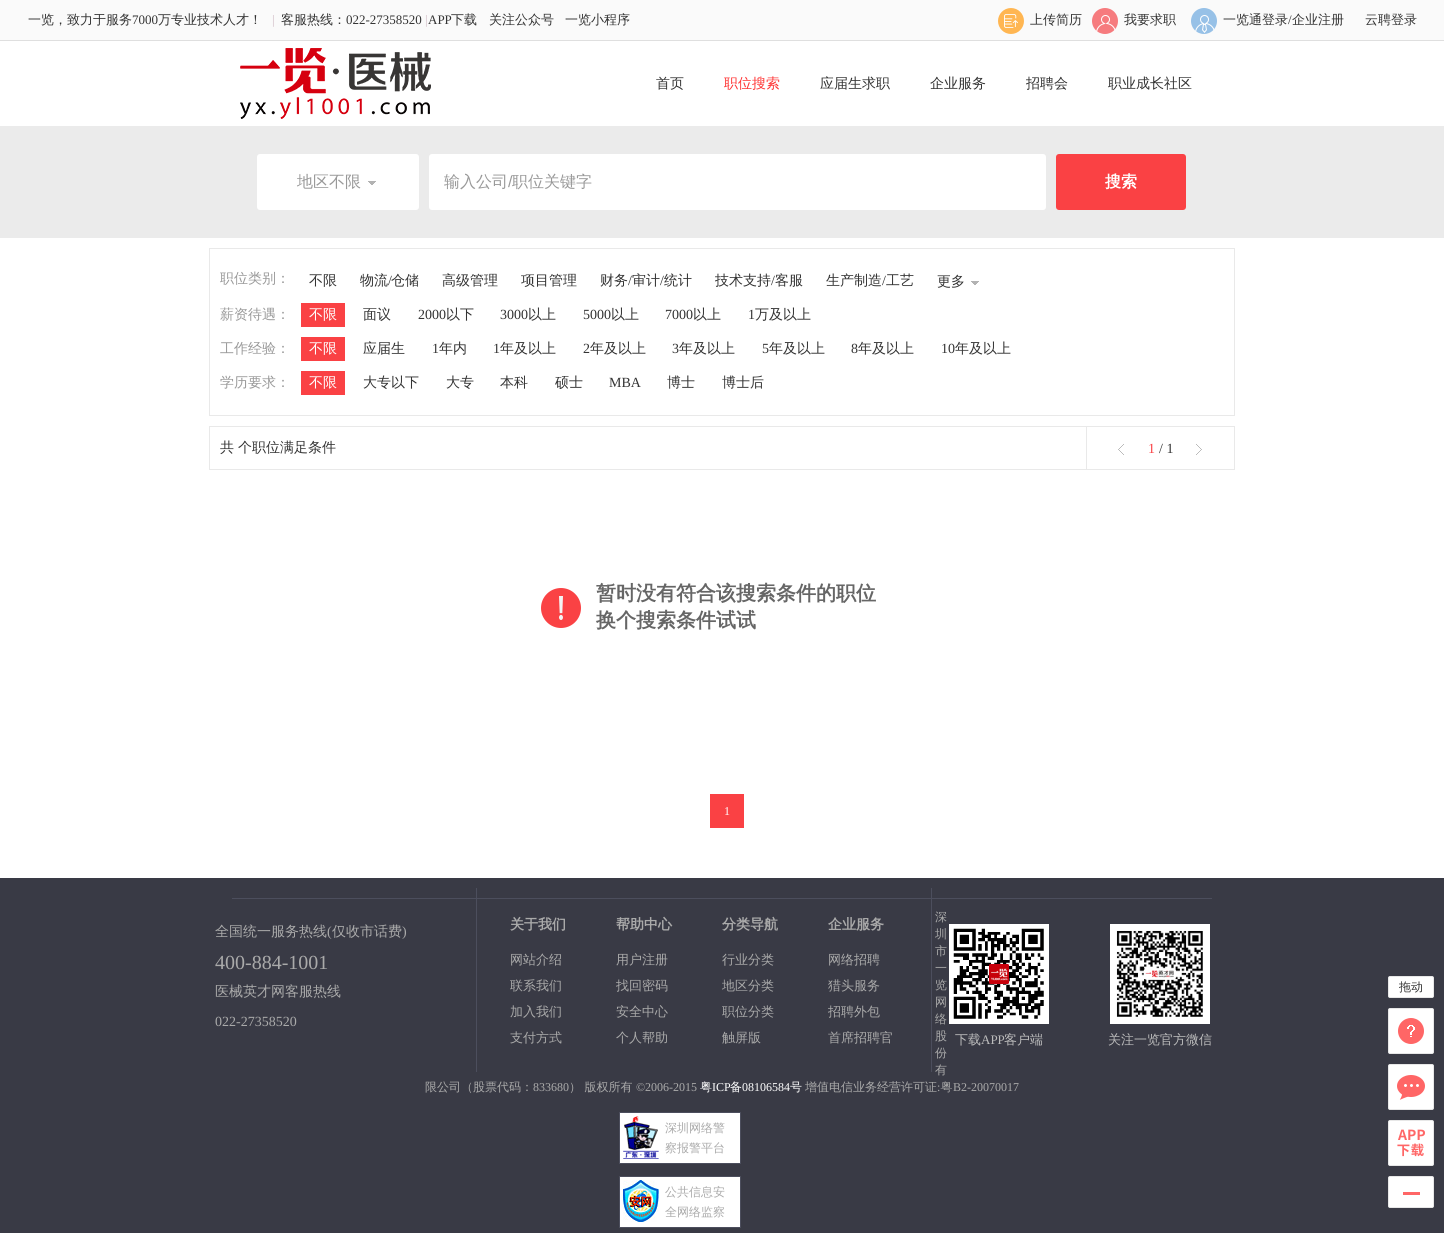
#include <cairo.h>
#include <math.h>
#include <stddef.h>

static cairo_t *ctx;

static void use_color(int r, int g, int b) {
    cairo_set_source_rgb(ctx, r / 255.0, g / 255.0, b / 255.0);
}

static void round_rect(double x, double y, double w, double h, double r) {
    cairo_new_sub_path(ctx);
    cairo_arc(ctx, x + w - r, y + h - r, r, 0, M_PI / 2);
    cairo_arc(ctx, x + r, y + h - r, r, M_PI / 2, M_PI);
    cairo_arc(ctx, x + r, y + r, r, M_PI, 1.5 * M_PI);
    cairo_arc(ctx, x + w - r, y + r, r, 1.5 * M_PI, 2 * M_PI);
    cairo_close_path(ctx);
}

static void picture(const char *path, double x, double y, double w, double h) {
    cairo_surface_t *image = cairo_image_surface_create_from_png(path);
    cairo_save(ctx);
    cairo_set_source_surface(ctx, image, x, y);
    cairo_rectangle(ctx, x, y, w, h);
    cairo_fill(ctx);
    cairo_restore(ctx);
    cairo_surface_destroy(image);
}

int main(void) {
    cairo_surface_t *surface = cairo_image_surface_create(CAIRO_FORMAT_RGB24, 1444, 1233);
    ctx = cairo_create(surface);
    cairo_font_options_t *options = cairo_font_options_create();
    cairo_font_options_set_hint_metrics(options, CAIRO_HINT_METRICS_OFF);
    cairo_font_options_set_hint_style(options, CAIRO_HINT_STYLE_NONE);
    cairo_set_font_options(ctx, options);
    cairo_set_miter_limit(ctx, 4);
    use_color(255, 255, 255);
    cairo_paint(ctx);
    use_color(250, 250, 250);
    cairo_rectangle(ctx, 0, 0, 1444, 40);
    cairo_fill(ctx);
    use_color(223, 223, 223);
    cairo_rectangle(ctx, 0, 40, 1444, 1);
    cairo_fill(ctx);
    cairo_select_font_face(ctx, "WenQuanYi Zen Hei Medium", CAIRO_FONT_SLANT_NORMAL, CAIRO_FONT_WEIGHT_NORMAL);
    cairo_set_font_size(ctx, 13);
    use_color(51, 51, 51);
    cairo_move_to(ctx, 28, 24);
    cairo_show_text(ctx, "一览，致力于服务");
    cairo_select_font_face(ctx, "Liberation Serif", CAIRO_FONT_SLANT_NORMAL, CAIRO_FONT_WEIGHT_NORMAL);
    cairo_move_to(ctx, 132, 24);
    cairo_show_text(ctx, "7000");
    cairo_select_font_face(ctx, "WenQuanYi Zen Hei Medium", CAIRO_FONT_SLANT_NORMAL, CAIRO_FONT_WEIGHT_NORMAL);
    cairo_move_to(ctx, 158, 24);
    cairo_show_text(ctx, "万专业技术人才！");
    cairo_select_font_face(ctx, "Liberation Serif", CAIRO_FONT_SLANT_NORMAL, CAIRO_FONT_WEIGHT_NORMAL);
    use_color(208, 188, 197);
    cairo_move_to(ctx, 272, 24);
    cairo_show_text(ctx, "|");
    cairo_select_font_face(ctx, "WenQuanYi Zen Hei Medium", CAIRO_FONT_SLANT_NORMAL, CAIRO_FONT_WEIGHT_NORMAL);
    use_color(51, 51, 51);
    cairo_move_to(ctx, 281, 24);
    cairo_show_text(ctx, "客服热线：");
    cairo_select_font_face(ctx, "Liberation Serif", CAIRO_FONT_SLANT_NORMAL, CAIRO_FONT_WEIGHT_NORMAL);
    cairo_move_to(ctx, 346, 24);
    cairo_show_text(ctx, "022-27358520");
    use_color(208, 188, 197);
    cairo_move_to(ctx, 425, 24);
    cairo_show_text(ctx, "|");
    use_color(51, 51, 51);
    cairo_move_to(ctx, 428, 24);
    cairo_show_text(ctx, "APP");
    cairo_select_font_face(ctx, "WenQuanYi Zen Hei Medium", CAIRO_FONT_SLANT_NORMAL, CAIRO_FONT_WEIGHT_NORMAL);
    cairo_move_to(ctx, 451, 24);
    cairo_show_text(ctx, "下载");
    cairo_move_to(ctx, 489, 24);
    cairo_show_text(ctx, "关注公众号");
    cairo_move_to(ctx, 565, 24);
    cairo_show_text(ctx, "一览小程序");
    picture("img1.png", 998, 8, 26, 26);
    cairo_move_to(ctx, 1030, 24);
    cairo_show_text(ctx, "上传简历");
    picture("img2.png", 1092, 8, 26, 26);
    cairo_move_to(ctx, 1124, 24);
    cairo_show_text(ctx, "我要求职");
    picture("img3.png", 1191, 8, 26, 26);
    cairo_move_to(ctx, 1223, 24);
    cairo_show_text(ctx, "一览通登录 企业注册");
    cairo_select_font_face(ctx, "Liberation Serif", CAIRO_FONT_SLANT_NORMAL, CAIRO_FONT_WEIGHT_NORMAL);
    cairo_move_to(ctx, 1288, 24);
    cairo_show_text(ctx, "/");
    cairo_select_font_face(ctx, "WenQuanYi Zen Hei Medium", CAIRO_FONT_SLANT_NORMAL, CAIRO_FONT_WEIGHT_NORMAL);
    cairo_move_to(ctx, 1365, 24);
    cairo_show_text(ctx, "云聘登录");
    picture("img4.png", 240, 48, 191, 71);
    cairo_set_font_size(ctx, 14);
    cairo_move_to(ctx, 656, 88);
    cairo_show_text(ctx, "首页");
    use_color(255, 51, 51);
    cairo_move_to(ctx, 724, 88);
    cairo_show_text(ctx, "职位搜索");
    use_color(51, 51, 51);
    cairo_move_to(ctx, 820, 88);
    cairo_show_text(ctx, "应届生求职");
    cairo_move_to(ctx, 930, 88);
    cairo_show_text(ctx, "企业服务");
    cairo_move_to(ctx, 1026, 88);
    cairo_show_text(ctx, "招聘会");
    cairo_move_to(ctx, 1108, 88);
    cairo_show_text(ctx, "职业成长社区");
    use_color(235, 235, 235);
    cairo_rectangle(ctx, 0, 126, 1444, 112);
    cairo_fill(ctx);
    use_color(255, 255, 255);
    round_rect(257, 154, 162, 56, 3);
    cairo_fill(ctx);
    cairo_set_font_size(ctx, 16);
    use_color(153, 153, 153);
    cairo_move_to(ctx, 297, 187);
    cairo_show_text(ctx, "地区不限");
    picture("img5.png", 368, 181, 8, 4);
    use_color(255, 255, 255);
    round_rect(429, 154, 617, 56, 3);
    cairo_fill(ctx);
    use_color(153, 153, 153);
    cairo_move_to(ctx, 444, 187);
    cairo_show_text(ctx, "输入公司");
    cairo_select_font_face(ctx, "Liberation Sans", CAIRO_FONT_SLANT_NORMAL, CAIRO_FONT_WEIGHT_NORMAL);
    cairo_move_to(ctx, 508, 187);
    cairo_show_text(ctx, "/");
    cairo_select_font_face(ctx, "WenQuanYi Zen Hei Medium", CAIRO_FONT_SLANT_NORMAL, CAIRO_FONT_WEIGHT_NORMAL);
    cairo_move_to(ctx, 512, 187);
    cairo_show_text(ctx, "职位关键字");
    use_color(250, 65, 68);
    round_rect(1056, 154, 130, 56, 3);
    cairo_fill(ctx);
    cairo_select_font_face(ctx, "WenQuanYi Zen Hei", CAIRO_FONT_SLANT_NORMAL, CAIRO_FONT_WEIGHT_BOLD);
    use_color(255, 255, 255);
    cairo_move_to(ctx, 1105, 187);
    cairo_show_text(ctx, "搜索");
    cairo_rectangle(ctx, 209.5, 248.5, 1025, 167);
    use_color(233, 233, 233);
    cairo_set_line_width(ctx, 1);
    cairo_stroke(ctx);
    cairo_select_font_face(ctx, "WenQuanYi Zen Hei Medium", CAIRO_FONT_SLANT_NORMAL, CAIRO_FONT_WEIGHT_NORMAL);
    cairo_set_font_size(ctx, 14);
    use_color(153, 153, 153);
    cairo_move_to(ctx, 220, 283);
    cairo_show_text(ctx, "职位类别：");
    use_color(51, 51, 51);
    cairo_move_to(ctx, 309, 285);
    cairo_show_text(ctx, "不限");
    cairo_move_to(ctx, 360, 285);
    cairo_show_text(ctx, "物流");
    cairo_select_font_face(ctx, "Liberation Serif", CAIRO_FONT_SLANT_NORMAL, CAIRO_FONT_WEIGHT_NORMAL);
    cairo_move_to(ctx, 388, 285);
    cairo_show_text(ctx, "/");
    cairo_select_font_face(ctx, "WenQuanYi Zen Hei Medium", CAIRO_FONT_SLANT_NORMAL, CAIRO_FONT_WEIGHT_NORMAL);
    cairo_move_to(ctx, 391, 285);
    cairo_show_text(ctx, "仓储");
    cairo_move_to(ctx, 442, 285);
    cairo_show_text(ctx, "高级管理");
    cairo_move_to(ctx, 521, 285);
    cairo_show_text(ctx, "项目管理");
    cairo_move_to(ctx, 600, 285);
    cairo_show_text(ctx, "财务");
    cairo_select_font_face(ctx, "Liberation Serif", CAIRO_FONT_SLANT_NORMAL, CAIRO_FONT_WEIGHT_NORMAL);
    cairo_move_to(ctx, 628, 285);
    cairo_show_text(ctx, "/");
    cairo_select_font_face(ctx, "WenQuanYi Zen Hei Medium", CAIRO_FONT_SLANT_NORMAL, CAIRO_FONT_WEIGHT_NORMAL);
    cairo_move_to(ctx, 632, 285);
    cairo_show_text(ctx, "审计");
    cairo_select_font_face(ctx, "Liberation Serif", CAIRO_FONT_SLANT_NORMAL, CAIRO_FONT_WEIGHT_NORMAL);
    cairo_move_to(ctx, 660, 285);
    cairo_show_text(ctx, "/");
    cairo_select_font_face(ctx, "WenQuanYi Zen Hei Medium", CAIRO_FONT_SLANT_NORMAL, CAIRO_FONT_WEIGHT_NORMAL);
    cairo_move_to(ctx, 664, 285);
    cairo_show_text(ctx, "统计");
    cairo_move_to(ctx, 715, 285);
    cairo_show_text(ctx, "技术支持");
    cairo_select_font_face(ctx, "Liberation Serif", CAIRO_FONT_SLANT_NORMAL, CAIRO_FONT_WEIGHT_NORMAL);
    cairo_move_to(ctx, 771, 285);
    cairo_show_text(ctx, "/");
    cairo_select_font_face(ctx, "WenQuanYi Zen Hei Medium", CAIRO_FONT_SLANT_NORMAL, CAIRO_FONT_WEIGHT_NORMAL);
    cairo_move_to(ctx, 775, 285);
    cairo_show_text(ctx, "客服");
    cairo_move_to(ctx, 826, 285);
    cairo_show_text(ctx, "生产制造");
    cairo_select_font_face(ctx, "Liberation Serif", CAIRO_FONT_SLANT_NORMAL, CAIRO_FONT_WEIGHT_NORMAL);
    cairo_move_to(ctx, 882, 285);
    cairo_show_text(ctx, "/");
    cairo_select_font_face(ctx, "WenQuanYi Zen Hei Medium", CAIRO_FONT_SLANT_NORMAL, CAIRO_FONT_WEIGHT_NORMAL);
    cairo_move_to(ctx, 886, 285);
    cairo_show_text(ctx, "工艺");
    cairo_move_to(ctx, 937, 286);
    cairo_show_text(ctx, "更多");
    picture("img5.png", 971, 281, 8, 4);
    use_color(153, 153, 153);
    cairo_move_to(ctx, 220, 319);
    cairo_show_text(ctx, "薪资待遇：");
    use_color(250, 65, 68);
    cairo_rectangle(ctx, 301, 303, 44, 24);
    cairo_fill(ctx);
    use_color(255, 255, 255);
    cairo_move_to(ctx, 309, 319);
    cairo_show_text(ctx, "不限");
    use_color(51, 51, 51);
    cairo_move_to(ctx, 363, 319);
    cairo_show_text(ctx, "面议");
    cairo_select_font_face(ctx, "Liberation Serif", CAIRO_FONT_SLANT_NORMAL, CAIRO_FONT_WEIGHT_NORMAL);
    cairo_move_to(ctx, 418, 319);
    cairo_show_text(ctx, "2000");
    cairo_select_font_face(ctx, "WenQuanYi Zen Hei Medium", CAIRO_FONT_SLANT_NORMAL, CAIRO_FONT_WEIGHT_NORMAL);
    cairo_move_to(ctx, 446, 319);
    cairo_show_text(ctx, "以下");
    cairo_select_font_face(ctx, "Liberation Serif", CAIRO_FONT_SLANT_NORMAL, CAIRO_FONT_WEIGHT_NORMAL);
    cairo_move_to(ctx, 500, 319);
    cairo_show_text(ctx, "3000");
    cairo_select_font_face(ctx, "WenQuanYi Zen Hei Medium", CAIRO_FONT_SLANT_NORMAL, CAIRO_FONT_WEIGHT_NORMAL);
    cairo_move_to(ctx, 528, 319);
    cairo_show_text(ctx, "以上");
    cairo_select_font_face(ctx, "Liberation Serif", CAIRO_FONT_SLANT_NORMAL, CAIRO_FONT_WEIGHT_NORMAL);
    cairo_move_to(ctx, 583, 319);
    cairo_show_text(ctx, "5000");
    cairo_select_font_face(ctx, "WenQuanYi Zen Hei Medium", CAIRO_FONT_SLANT_NORMAL, CAIRO_FONT_WEIGHT_NORMAL);
    cairo_move_to(ctx, 611, 319);
    cairo_show_text(ctx, "以上");
    cairo_select_font_face(ctx, "Liberation Serif", CAIRO_FONT_SLANT_NORMAL, CAIRO_FONT_WEIGHT_NORMAL);
    cairo_move_to(ctx, 665, 319);
    cairo_show_text(ctx, "7000");
    cairo_select_font_face(ctx, "WenQuanYi Zen Hei Medium", CAIRO_FONT_SLANT_NORMAL, CAIRO_FONT_WEIGHT_NORMAL);
    cairo_move_to(ctx, 693, 319);
    cairo_show_text(ctx, "以上");
    cairo_select_font_face(ctx, "Liberation Serif", CAIRO_FONT_SLANT_NORMAL, CAIRO_FONT_WEIGHT_NORMAL);
    cairo_move_to(ctx, 748, 319);
    cairo_show_text(ctx, "1");
    cairo_select_font_face(ctx, "WenQuanYi Zen Hei Medium", CAIRO_FONT_SLANT_NORMAL, CAIRO_FONT_WEIGHT_NORMAL);
    cairo_move_to(ctx, 755, 319);
    cairo_show_text(ctx, "万及以上");
    use_color(153, 153, 153);
    cairo_move_to(ctx, 220, 353);
    cairo_show_text(ctx, "工作经验：");
    use_color(250, 65, 68);
    cairo_rectangle(ctx, 301, 337, 44, 24);
    cairo_fill(ctx);
    use_color(255, 255, 255);
    cairo_move_to(ctx, 309, 353);
    cairo_show_text(ctx, "不限");
    use_color(51, 51, 51);
    cairo_move_to(ctx, 363, 353);
    cairo_show_text(ctx, "应届生");
    cairo_select_font_face(ctx, "Liberation Serif", CAIRO_FONT_SLANT_NORMAL, CAIRO_FONT_WEIGHT_NORMAL);
    cairo_move_to(ctx, 432, 353);
    cairo_show_text(ctx, "1");
    cairo_select_font_face(ctx, "WenQuanYi Zen Hei Medium", CAIRO_FONT_SLANT_NORMAL, CAIRO_FONT_WEIGHT_NORMAL);
    cairo_move_to(ctx, 439, 353);
    cairo_show_text(ctx, "年内");
    cairo_select_font_face(ctx, "Liberation Serif", CAIRO_FONT_SLANT_NORMAL, CAIRO_FONT_WEIGHT_NORMAL);
    cairo_move_to(ctx, 493, 353);
    cairo_show_text(ctx, "1");
    cairo_select_font_face(ctx, "WenQuanYi Zen Hei Medium", CAIRO_FONT_SLANT_NORMAL, CAIRO_FONT_WEIGHT_NORMAL);
    cairo_move_to(ctx, 500, 353);
    cairo_show_text(ctx, "年及以上");
    cairo_select_font_face(ctx, "Liberation Serif", CAIRO_FONT_SLANT_NORMAL, CAIRO_FONT_WEIGHT_NORMAL);
    cairo_move_to(ctx, 583, 353);
    cairo_show_text(ctx, "2");
    cairo_select_font_face(ctx, "WenQuanYi Zen Hei Medium", CAIRO_FONT_SLANT_NORMAL, CAIRO_FONT_WEIGHT_NORMAL);
    cairo_move_to(ctx, 590, 353);
    cairo_show_text(ctx, "年及以上");
    cairo_select_font_face(ctx, "Liberation Serif", CAIRO_FONT_SLANT_NORMAL, CAIRO_FONT_WEIGHT_NORMAL);
    cairo_move_to(ctx, 672, 353);
    cairo_show_text(ctx, "3");
    cairo_select_font_face(ctx, "WenQuanYi Zen Hei Medium", CAIRO_FONT_SLANT_NORMAL, CAIRO_FONT_WEIGHT_NORMAL);
    cairo_move_to(ctx, 679, 353);
    cairo_show_text(ctx, "年及以上");
    cairo_select_font_face(ctx, "Liberation Serif", CAIRO_FONT_SLANT_NORMAL, CAIRO_FONT_WEIGHT_NORMAL);
    cairo_move_to(ctx, 762, 353);
    cairo_show_text(ctx, "5");
    cairo_select_font_face(ctx, "WenQuanYi Zen Hei Medium", CAIRO_FONT_SLANT_NORMAL, CAIRO_FONT_WEIGHT_NORMAL);
    cairo_move_to(ctx, 769, 353);
    cairo_show_text(ctx, "年及以上");
    cairo_select_font_face(ctx, "Liberation Serif", CAIRO_FONT_SLANT_NORMAL, CAIRO_FONT_WEIGHT_NORMAL);
    cairo_move_to(ctx, 851, 353);
    cairo_show_text(ctx, "8");
    cairo_select_font_face(ctx, "WenQuanYi Zen Hei Medium", CAIRO_FONT_SLANT_NORMAL, CAIRO_FONT_WEIGHT_NORMAL);
    cairo_move_to(ctx, 858, 353);
    cairo_show_text(ctx, "年及以上");
    cairo_select_font_face(ctx, "Liberation Serif", CAIRO_FONT_SLANT_NORMAL, CAIRO_FONT_WEIGHT_NORMAL);
    cairo_move_to(ctx, 941, 353);
    cairo_show_text(ctx, "10");
    cairo_select_font_face(ctx, "WenQuanYi Zen Hei Medium", CAIRO_FONT_SLANT_NORMAL, CAIRO_FONT_WEIGHT_NORMAL);
    cairo_move_to(ctx, 955, 353);
    cairo_show_text(ctx, "年及以上");
    use_color(153, 153, 153);
    cairo_move_to(ctx, 220, 387);
    cairo_show_text(ctx, "学历要求：");
    use_color(250, 65, 68);
    cairo_rectangle(ctx, 301, 371, 44, 24);
    cairo_fill(ctx);
    use_color(255, 255, 255);
    cairo_move_to(ctx, 309, 387);
    cairo_show_text(ctx, "不限");
    use_color(51, 51, 51);
    cairo_move_to(ctx, 363, 387);
    cairo_show_text(ctx, "大专以下");
    cairo_move_to(ctx, 446, 387);
    cairo_show_text(ctx, "大专");
    cairo_move_to(ctx, 500, 387);
    cairo_show_text(ctx, "本科");
    cairo_move_to(ctx, 555, 387);
    cairo_show_text(ctx, "硕士");
    cairo_select_font_face(ctx, "Liberation Serif", CAIRO_FONT_SLANT_NORMAL, CAIRO_FONT_WEIGHT_NORMAL);
    cairo_move_to(ctx, 609, 387);
    cairo_show_text(ctx, "MBA");
    cairo_select_font_face(ctx, "WenQuanYi Zen Hei Medium", CAIRO_FONT_SLANT_NORMAL, CAIRO_FONT_WEIGHT_NORMAL);
    cairo_move_to(ctx, 667, 387);
    cairo_show_text(ctx, "博士");
    cairo_move_to(ctx, 722, 387);
    cairo_show_text(ctx, "博士后");
    cairo_rectangle(ctx, 209.5, 426.5, 1025, 43);
    use_color(233, 233, 233);
    cairo_stroke(ctx);
    use_color(51, 51, 51);
    cairo_move_to(ctx, 220, 452);
    cairo_show_text(ctx, "共");
    cairo_move_to(ctx, 238, 452);
    cairo_show_text(ctx, "个职位满足条件");
    use_color(233, 233, 233);
    cairo_rectangle(ctx, 1086, 427, 1, 43);
    cairo_fill(ctx);
    picture("img6.png", 1118, 444, 6, 11);
    cairo_select_font_face(ctx, "Liberation Serif", CAIRO_FONT_SLANT_NORMAL, CAIRO_FONT_WEIGHT_NORMAL);
    use_color(250, 65, 68);
    cairo_move_to(ctx, 1148, 453);
    cairo_show_text(ctx, "1");
    use_color(51, 51, 51);
    cairo_move_to(ctx, 1159, 453);
    cairo_show_text(ctx, "/ 1");
    picture("img7.png", 1196, 444, 6, 11);
    picture("img8.png", 541, 588, 40, 40);
    cairo_select_font_face(ctx, "WenQuanYi Zen Hei", CAIRO_FONT_SLANT_NORMAL, CAIRO_FONT_WEIGHT_BOLD);
    cairo_set_font_size(ctx, 20);
    use_color(102, 102, 102);
    cairo_move_to(ctx, 596, 600);
    cairo_show_text(ctx, "暂时没有符合该搜索条件的职位");
    cairo_move_to(ctx, 596, 627);
    cairo_show_text(ctx, "换个搜索条件试试");
    use_color(250, 65, 68);
    cairo_rectangle(ctx, 710, 794, 34, 34);
    cairo_fill(ctx);
    cairo_select_font_face(ctx, "Liberation Serif", CAIRO_FONT_SLANT_NORMAL, CAIRO_FONT_WEIGHT_NORMAL);
    cairo_set_font_size(ctx, 12);
    use_color(255, 255, 255);
    cairo_move_to(ctx, 724, 815);
    cairo_show_text(ctx, "1");
    use_color(57, 58, 69);
    cairo_rectangle(ctx, 0, 878, 1444, 355);
    cairo_fill(ctx);
    use_color(76, 78, 93);
    cairo_rectangle(ctx, 232, 898, 980, 1);
    cairo_fill(ctx);
    cairo_select_font_face(ctx, "WenQuanYi Zen Hei Medium", CAIRO_FONT_SLANT_NORMAL, CAIRO_FONT_WEIGHT_NORMAL);
    use_color(170, 170, 170);
    cairo_move_to(ctx, 935, 921);
    cairo_show_text(ctx, "深");
    cairo_move_to(ctx, 935, 938);
    cairo_show_text(ctx, "圳");
    cairo_move_to(ctx, 935, 955);
    cairo_show_text(ctx, "市");
    cairo_move_to(ctx, 935, 972);
    cairo_show_text(ctx, "一");
    cairo_move_to(ctx, 935, 989);
    cairo_show_text(ctx, "览");
    cairo_move_to(ctx, 935, 1006);
    cairo_show_text(ctx, "网");
    cairo_move_to(ctx, 935, 1023);
    cairo_show_text(ctx, "络");
    cairo_move_to(ctx, 935, 1040);
    cairo_show_text(ctx, "股");
    cairo_move_to(ctx, 935, 1057);
    cairo_show_text(ctx, "份");
    cairo_move_to(ctx, 935, 1074);
    cairo_show_text(ctx, "有");
    cairo_move_to(ctx, 425, 1091);
    cairo_show_text(ctx, "限公司（股票代码：");
    cairo_select_font_face(ctx, "Liberation Serif", CAIRO_FONT_SLANT_NORMAL, CAIRO_FONT_WEIGHT_NORMAL);
    cairo_move_to(ctx, 533, 1091);
    cairo_show_text(ctx, "833680");
    cairo_select_font_face(ctx, "WenQuanYi Zen Hei Medium", CAIRO_FONT_SLANT_NORMAL, CAIRO_FONT_WEIGHT_NORMAL);
    cairo_move_to(ctx, 569, 1091);
    cairo_show_text(ctx, "） 版权所有");
    cairo_select_font_face(ctx, "Liberation Serif", CAIRO_FONT_SLANT_NORMAL, CAIRO_FONT_WEIGHT_NORMAL);
    cairo_move_to(ctx, 636, 1091);
    cairo_show_text(ctx, "©2006-2015");
    cairo_select_font_face(ctx, "WenQuanYi Zen Hei Medium", CAIRO_FONT_SLANT_NORMAL, CAIRO_FONT_WEIGHT_NORMAL);
    use_color(255, 255, 255);
    cairo_move_to(ctx, 700, 1091);
    cairo_show_text(ctx, "粤");
    cairo_select_font_face(ctx, "Liberation Serif", CAIRO_FONT_SLANT_NORMAL, CAIRO_FONT_WEIGHT_NORMAL);
    cairo_move_to(ctx, 712, 1091);
    cairo_show_text(ctx, "ICP");
    cairo_select_font_face(ctx, "WenQuanYi Zen Hei Medium", CAIRO_FONT_SLANT_NORMAL, CAIRO_FONT_WEIGHT_NORMAL);
    cairo_move_to(ctx, 730, 1091);
    cairo_show_text(ctx, "备");
    cairo_select_font_face(ctx, "Liberation Serif", CAIRO_FONT_SLANT_NORMAL, CAIRO_FONT_WEIGHT_NORMAL);
    cairo_move_to(ctx, 742, 1091);
    cairo_show_text(ctx, "08106584");
    cairo_select_font_face(ctx, "WenQuanYi Zen Hei Medium", CAIRO_FONT_SLANT_NORMAL, CAIRO_FONT_WEIGHT_NORMAL);
    cairo_move_to(ctx, 790, 1091);
    cairo_show_text(ctx, "号");
    use_color(170, 170, 170);
    cairo_move_to(ctx, 805, 1091);
    cairo_show_text(ctx, "增值电信业务经营许可证 粤");
    cairo_select_font_face(ctx, "Liberation Serif", CAIRO_FONT_SLANT_NORMAL, CAIRO_FONT_WEIGHT_NORMAL);
    cairo_move_to(ctx, 953, 1091);
    cairo_show_text(ctx, "B2-20070017");
    cairo_move_to(ctx, 937, 1091);
    cairo_show_text(ctx, ":");
    use_color(255, 255, 255);
    cairo_rectangle(ctx, 619.5, 1112.5, 121, 51);
    cairo_fill_preserve(ctx);
    use_color(76, 78, 93);
    cairo_stroke(ctx);
    picture("img9.png", 623, 1116, 36, 43);
    cairo_select_font_face(ctx, "WenQuanYi Zen Hei Medium", CAIRO_FONT_SLANT_NORMAL, CAIRO_FONT_WEIGHT_NORMAL);
    use_color(170, 170, 170);
    cairo_move_to(ctx, 665, 1132);
    cairo_show_text(ctx, "深圳网络警");
    cairo_move_to(ctx, 665, 1152);
    cairo_show_text(ctx, "察报警平台");
    use_color(255, 255, 255);
    cairo_rectangle(ctx, 619.5, 1176.5, 121, 51);
    cairo_fill_preserve(ctx);
    use_color(76, 78, 93);
    cairo_stroke(ctx);
    picture("img10.png", 623, 1180, 36, 42);
    use_color(170, 170, 170);
    cairo_move_to(ctx, 665, 1196);
    cairo_show_text(ctx, "公共信息安");
    cairo_move_to(ctx, 665, 1216);
    cairo_show_text(ctx, "全网络监察");
    cairo_set_font_size(ctx, 14);
    cairo_move_to(ctx, 215, 936);
    cairo_show_text(ctx, "全国统一服务热线");
    cairo_select_font_face(ctx, "Liberation Serif", CAIRO_FONT_SLANT_NORMAL, CAIRO_FONT_WEIGHT_NORMAL);
    cairo_move_to(ctx, 327, 936);
    cairo_show_text(ctx, "(");
    cairo_select_font_face(ctx, "WenQuanYi Zen Hei Medium", CAIRO_FONT_SLANT_NORMAL, CAIRO_FONT_WEIGHT_NORMAL);
    cairo_move_to(ctx, 332, 936);
    cairo_show_text(ctx, "仅收市话费");
    cairo_select_font_face(ctx, "Liberation Serif", CAIRO_FONT_SLANT_NORMAL, CAIRO_FONT_WEIGHT_NORMAL);
    cairo_move_to(ctx, 402, 936);
    cairo_show_text(ctx, ")");
    cairo_set_font_size(ctx, 20);
    cairo_move_to(ctx, 215, 969);
    cairo_show_text(ctx, "400-884-1001");
    cairo_select_font_face(ctx, "WenQuanYi Zen Hei Medium", CAIRO_FONT_SLANT_NORMAL, CAIRO_FONT_WEIGHT_NORMAL);
    cairo_set_font_size(ctx, 14);
    cairo_move_to(ctx, 215, 996);
    cairo_show_text(ctx, "医械英才网客服热线");
    cairo_select_font_face(ctx, "Liberation Serif", CAIRO_FONT_SLANT_NORMAL, CAIRO_FONT_WEIGHT_NORMAL);
    cairo_move_to(ctx, 215, 1026);
    cairo_show_text(ctx, "022-27358520");
    use_color(76, 78, 93);
    cairo_rectangle(ctx, 931, 888, 1, 184);
    cairo_fill(ctx);
    cairo_rectangle(ctx, 476, 888, 1, 184);
    cairo_fill(ctx);
    cairo_select_font_face(ctx, "WenQuanYi Zen Hei", CAIRO_FONT_SLANT_NORMAL, CAIRO_FONT_WEIGHT_BOLD);
    use_color(170, 170, 170);
    cairo_move_to(ctx, 510, 929);
    cairo_show_text(ctx, "关于我们");
    cairo_select_font_face(ctx, "WenQuanYi Zen Hei Medium", CAIRO_FONT_SLANT_NORMAL, CAIRO_FONT_WEIGHT_NORMAL);
    cairo_set_font_size(ctx, 13);
    cairo_move_to(ctx, 510, 964);
    cairo_show_text(ctx, "网站介绍");
    cairo_move_to(ctx, 510, 990);
    cairo_show_text(ctx, "联系我们");
    cairo_move_to(ctx, 510, 1016);
    cairo_show_text(ctx, "加入我们");
    cairo_move_to(ctx, 510, 1042);
    cairo_show_text(ctx, "支付方式");
    cairo_select_font_face(ctx, "WenQuanYi Zen Hei", CAIRO_FONT_SLANT_NORMAL, CAIRO_FONT_WEIGHT_BOLD);
    cairo_set_font_size(ctx, 14);
    cairo_move_to(ctx, 616, 929);
    cairo_show_text(ctx, "帮助中心");
    cairo_select_font_face(ctx, "WenQuanYi Zen Hei Medium", CAIRO_FONT_SLANT_NORMAL, CAIRO_FONT_WEIGHT_NORMAL);
    cairo_set_font_size(ctx, 13);
    cairo_move_to(ctx, 616, 964);
    cairo_show_text(ctx, "用户注册");
    cairo_move_to(ctx, 616, 990);
    cairo_show_text(ctx, "找回密码");
    cairo_move_to(ctx, 616, 1016);
    cairo_show_text(ctx, "安全中心");
    cairo_move_to(ctx, 616, 1042);
    cairo_show_text(ctx, "个人帮助");
    cairo_select_font_face(ctx, "WenQuanYi Zen Hei", CAIRO_FONT_SLANT_NORMAL, CAIRO_FONT_WEIGHT_BOLD);
    cairo_set_font_size(ctx, 14);
    cairo_move_to(ctx, 722, 929);
    cairo_show_text(ctx, "分类导航");
    cairo_select_font_face(ctx, "WenQuanYi Zen Hei Medium", CAIRO_FONT_SLANT_NORMAL, CAIRO_FONT_WEIGHT_NORMAL);
    cairo_set_font_size(ctx, 13);
    cairo_move_to(ctx, 722, 964);
    cairo_show_text(ctx, "行业分类");
    cairo_move_to(ctx, 722, 990);
    cairo_show_text(ctx, "地区分类");
    cairo_move_to(ctx, 722, 1016);
    cairo_show_text(ctx, "职位分类");
    cairo_move_to(ctx, 722, 1042);
    cairo_show_text(ctx, "触屏版");
    cairo_select_font_face(ctx, "WenQuanYi Zen Hei", CAIRO_FONT_SLANT_NORMAL, CAIRO_FONT_WEIGHT_BOLD);
    cairo_set_font_size(ctx, 14);
    cairo_move_to(ctx, 828, 929);
    cairo_show_text(ctx, "企业服务");
    cairo_select_font_face(ctx, "WenQuanYi Zen Hei Medium", CAIRO_FONT_SLANT_NORMAL, CAIRO_FONT_WEIGHT_NORMAL);
    cairo_set_font_size(ctx, 13);
    cairo_move_to(ctx, 828, 964);
    cairo_show_text(ctx, "网络招聘");
    cairo_move_to(ctx, 828, 990);
    cairo_show_text(ctx, "猎头服务");
    cairo_move_to(ctx, 828, 1016);
    cairo_show_text(ctx, "招聘外包");
    cairo_move_to(ctx, 828, 1042);
    cairo_show_text(ctx, "首席招聘官");
    picture("img11.png", 949, 924, 100, 100);
    use_color(188, 188, 188);
    cairo_move_to(ctx, 955, 1044);
    cairo_show_text(ctx, "下载");
    cairo_select_font_face(ctx, "Liberation Serif", CAIRO_FONT_SLANT_NORMAL, CAIRO_FONT_WEIGHT_NORMAL);
    cairo_move_to(ctx, 981, 1044);
    cairo_show_text(ctx, "APP");
    cairo_select_font_face(ctx, "WenQuanYi Zen Hei Medium", CAIRO_FONT_SLANT_NORMAL, CAIRO_FONT_WEIGHT_NORMAL);
    cairo_move_to(ctx, 1004, 1044);
    cairo_show_text(ctx, "客户端");
    picture("img12.png", 1110, 924, 100, 100);
    cairo_move_to(ctx, 1108, 1044);
    cairo_show_text(ctx, "关注一览官方微信");
    use_color(255, 255, 255);
    round_rect(1388.5, 976.5, 45, 21, 1.5);
    cairo_fill_preserve(ctx);
    use_color(231, 231, 231);
    cairo_stroke(ctx);
    cairo_set_font_size(ctx, 12);
    use_color(51, 51, 51);
    cairo_move_to(ctx, 1399, 991);
    cairo_show_text(ctx, "拖动");
    use_color(255, 255, 255);
    round_rect(1388.5, 1008.5, 45, 45, 1.5);
    cairo_fill_preserve(ctx);
    use_color(231, 231, 231);
    cairo_stroke(ctx);
    picture("img13.png", 1398, 1018, 26, 26);
    use_color(255, 255, 255);
    round_rect(1388.5, 1064.5, 45, 45, 1.5);
    cairo_fill_preserve(ctx);
    use_color(231, 231, 231);
    cairo_stroke(ctx);
    picture("img14.png", 1397, 1075, 28, 25);
    use_color(255, 255, 255);
    round_rect(1388.5, 1120.5, 45, 45, 1.5);
    cairo_fill_preserve(ctx);
    use_color(231, 231, 231);
    cairo_stroke(ctx);
    picture("img15.png", 1397, 1129, 28, 28);
    use_color(255, 255, 255);
    round_rect(1388.5, 1176.5, 45, 31, 1.5);
    cairo_fill_preserve(ctx);
    use_color(231, 231, 231);
    cairo_stroke(ctx);
    use_color(255, 102, 102);
    cairo_rectangle(ctx, 1403, 1192, 17, 3);
    cairo_fill(ctx);
    cairo_surface_write_to_png(surface, "result.png");
    cairo_font_options_destroy(options);
    cairo_destroy(ctx);
    cairo_surface_destroy(surface);
    return 0;
}
